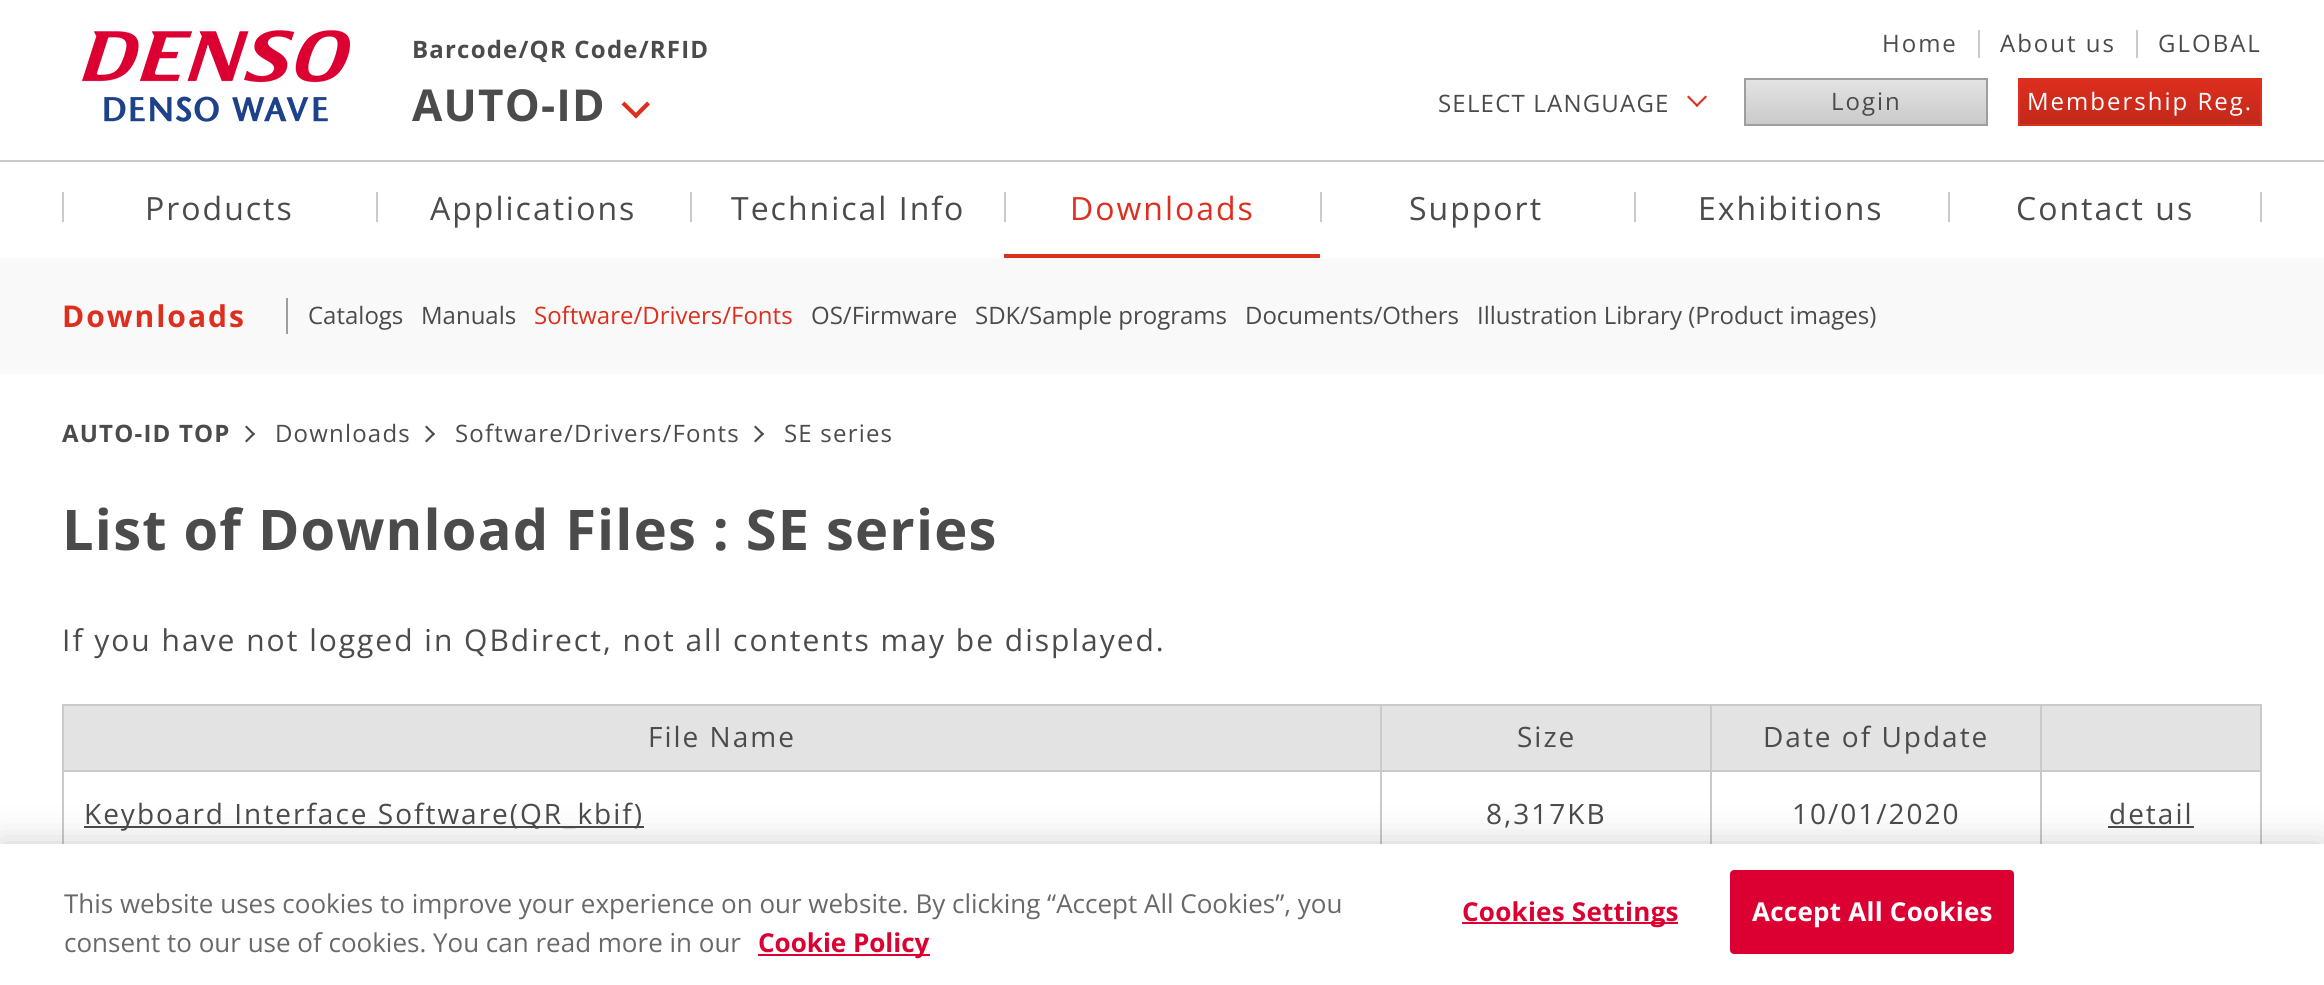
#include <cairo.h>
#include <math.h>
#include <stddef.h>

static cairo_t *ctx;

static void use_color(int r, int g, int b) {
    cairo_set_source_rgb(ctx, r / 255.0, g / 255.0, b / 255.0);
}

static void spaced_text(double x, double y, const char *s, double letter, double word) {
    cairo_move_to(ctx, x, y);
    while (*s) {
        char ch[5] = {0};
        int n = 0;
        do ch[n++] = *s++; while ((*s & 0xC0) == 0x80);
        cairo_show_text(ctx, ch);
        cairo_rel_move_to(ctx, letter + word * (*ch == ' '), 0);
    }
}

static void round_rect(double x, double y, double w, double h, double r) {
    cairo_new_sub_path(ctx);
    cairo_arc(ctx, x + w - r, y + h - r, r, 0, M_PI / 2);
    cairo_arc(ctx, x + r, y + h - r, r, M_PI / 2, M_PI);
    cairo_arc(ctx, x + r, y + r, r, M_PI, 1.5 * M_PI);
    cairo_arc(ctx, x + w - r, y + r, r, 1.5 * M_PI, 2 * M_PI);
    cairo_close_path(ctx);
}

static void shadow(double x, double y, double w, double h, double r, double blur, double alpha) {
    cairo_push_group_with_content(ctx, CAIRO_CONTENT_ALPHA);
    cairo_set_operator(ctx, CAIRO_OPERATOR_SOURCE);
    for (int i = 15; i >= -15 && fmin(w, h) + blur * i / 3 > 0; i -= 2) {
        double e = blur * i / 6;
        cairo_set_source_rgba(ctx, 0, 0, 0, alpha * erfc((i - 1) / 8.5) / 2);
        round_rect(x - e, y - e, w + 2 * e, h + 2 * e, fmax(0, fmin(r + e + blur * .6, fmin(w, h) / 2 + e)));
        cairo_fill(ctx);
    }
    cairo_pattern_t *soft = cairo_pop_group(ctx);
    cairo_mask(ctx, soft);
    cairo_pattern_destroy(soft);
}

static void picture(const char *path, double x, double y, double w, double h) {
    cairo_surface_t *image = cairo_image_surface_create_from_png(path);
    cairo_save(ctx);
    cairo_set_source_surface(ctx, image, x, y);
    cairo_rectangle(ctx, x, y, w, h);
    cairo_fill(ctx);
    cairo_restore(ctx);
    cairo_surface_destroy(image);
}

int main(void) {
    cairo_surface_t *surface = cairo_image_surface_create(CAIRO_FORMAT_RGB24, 2324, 985);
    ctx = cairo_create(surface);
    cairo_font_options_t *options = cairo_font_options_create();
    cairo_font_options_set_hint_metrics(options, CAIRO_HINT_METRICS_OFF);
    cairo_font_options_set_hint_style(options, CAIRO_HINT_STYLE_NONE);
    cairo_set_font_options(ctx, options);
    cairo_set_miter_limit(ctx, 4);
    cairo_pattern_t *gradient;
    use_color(255, 255, 255);
    cairo_paint(ctx);
    cairo_select_font_face(ctx, "Open Sans", CAIRO_FONT_SLANT_NORMAL, CAIRO_FONT_WEIGHT_BOLD);
    cairo_set_font_size(ctx, 24);
    use_color(75, 75, 75);
    spaced_text(412, 58, "Barcode/QR Code/RFID", 1.2, 0);
    cairo_set_font_size(ctx, 44);
    spaced_text(412, 121, "AUTO-ID", 1.2, 0);
    use_color(221, 46, 30);
    cairo_new_path(ctx);
    cairo_move_to(ctx, 650, 104.5);
    cairo_line_to(ctx, 636, 118.5);
    cairo_line_to(ctx, 633, 115.5);
    cairo_line_to(ctx, 647, 101.5);
    cairo_close_path(ctx);
    cairo_fill(ctx);
    cairo_new_path(ctx);
    cairo_move_to(ctx, 638.5, 115.5);
    cairo_line_to(ctx, 636, 118.5);
    cairo_line_to(ctx, 621.5, 104.5);
    cairo_line_to(ctx, 624.5, 101.5);
    cairo_close_path(ctx);
    cairo_fill(ctx);
    picture("img1.png", 82, 30, 268, 92);
    cairo_select_font_face(ctx, "Open Sans", CAIRO_FONT_SLANT_NORMAL, CAIRO_FONT_WEIGHT_NORMAL);
    cairo_set_font_size(ctx, 24);
    use_color(75, 75, 75);
    spaced_text(1882, 52, "Home", 2, 0);
    use_color(202, 202, 202);
    cairo_rectangle(ctx, 1978, 30, 2, 28);
    cairo_fill(ctx);
    use_color(75, 75, 75);
    spaced_text(2000, 52, "About us", 2, 0);
    use_color(202, 202, 202);
    cairo_rectangle(ctx, 2136, 30, 2, 28);
    cairo_fill(ctx);
    use_color(75, 75, 75);
    spaced_text(2158, 52, "GLOBAL", 2, 0);
    spaced_text(1438, 112, "SELECT LANGUAGE", 1.2, 0);
    use_color(221, 46, 30);
    cairo_new_path(ctx);
    cairo_move_to(ctx, 1707, 97);
    cairo_line_to(ctx, 1697, 107);
    cairo_line_to(ctx, 1695.5, 105.5);
    cairo_line_to(ctx, 1705.5, 95.5);
    cairo_close_path(ctx);
    cairo_fill(ctx);
    cairo_new_path(ctx);
    cairo_move_to(ctx, 1698.5, 105.5);
    cairo_line_to(ctx, 1697, 107);
    cairo_line_to(ctx, 1687, 97);
    cairo_line_to(ctx, 1688.5, 95.5);
    cairo_close_path(ctx);
    cairo_fill(ctx);
    gradient = cairo_pattern_create_linear(1866, 80, 1866, 124);
    cairo_pattern_add_color_stop_rgba(gradient, 0, 0.89, 0.89, 0.89, 1);
    cairo_pattern_add_color_stop_rgba(gradient, 1, 0.792, 0.792, 0.792, 1);
    cairo_set_source(ctx, gradient);
    cairo_pattern_destroy(gradient);
    cairo_rectangle(ctx, 1746, 80, 240, 44);
    cairo_fill(ctx);
    cairo_rectangle(ctx, 1745, 79, 242, 46);
    use_color(158, 158, 158);
    cairo_stroke(ctx);
    use_color(75, 75, 75);
    spaced_text(1831, 110, "Login", 2, 0);
    gradient = cairo_pattern_create_linear(2140, 80, 2140, 124);
    cairo_pattern_add_color_stop_rgba(gradient, 0, 0.867, 0.18, 0.118, 1);
    cairo_pattern_add_color_stop_rgba(gradient, 1, 0.757, 0.161, 0.106, 1);
    cairo_set_source(ctx, gradient);
    cairo_pattern_destroy(gradient);
    cairo_rectangle(ctx, 2020, 80, 240, 44);
    cairo_fill(ctx);
    cairo_rectangle(ctx, 2019, 79, 242, 46);
    use_color(221, 46, 30);
    cairo_stroke(ctx);
    use_color(255, 255, 255);
    spaced_text(2027, 110, "Membership Reg.", 2, 0);
    use_color(202, 202, 202);
    cairo_rectangle(ctx, 0, 160, 2324, 2);
    cairo_fill(ctx);
    cairo_rectangle(ctx, 62, 192, 2, 30);
    cairo_fill(ctx);
    cairo_set_font_size(ctx, 32);
    use_color(75, 75, 75);
    spaced_text(145, 220, "Products", 2, 0);
    use_color(202, 202, 202);
    cairo_rectangle(ctx, 376, 192, 2, 30);
    cairo_fill(ctx);
    use_color(75, 75, 75);
    spaced_text(430, 220, "Applications", 2, 0);
    use_color(202, 202, 202);
    cairo_rectangle(ctx, 690, 192, 2, 30);
    cairo_fill(ctx);
    use_color(75, 75, 75);
    spaced_text(731, 220, "Technical Info", 2, 0);
    use_color(202, 202, 202);
    cairo_rectangle(ctx, 1004, 192, 2, 30);
    cairo_fill(ctx);
    use_color(221, 46, 30);
    spaced_text(1070, 220, "Downloads", 2, 0);
    cairo_rectangle(ctx, 1004, 254, 316, 4);
    cairo_fill(ctx);
    use_color(202, 202, 202);
    cairo_rectangle(ctx, 1320, 192, 2, 30);
    cairo_fill(ctx);
    use_color(75, 75, 75);
    spaced_text(1409, 220, "Support", 2, 0);
    use_color(202, 202, 202);
    cairo_rectangle(ctx, 1634, 192, 2, 30);
    cairo_fill(ctx);
    use_color(75, 75, 75);
    spaced_text(1698, 220, "Exhibitions", 2, 0);
    use_color(202, 202, 202);
    cairo_rectangle(ctx, 1948, 192, 2, 30);
    cairo_fill(ctx);
    use_color(75, 75, 75);
    spaced_text(2016, 220, "Contact us", 2, 0);
    use_color(202, 202, 202);
    cairo_rectangle(ctx, 2260, 192, 2, 30);
    cairo_fill(ctx);
    use_color(249, 249, 249);
    cairo_rectangle(ctx, 0, 258, 2324, 116);
    cairo_fill(ctx);
    cairo_select_font_face(ctx, "Open Sans", CAIRO_FONT_SLANT_NORMAL, CAIRO_FONT_WEIGHT_BOLD);
    cairo_set_font_size(ctx, 30);
    use_color(221, 46, 30);
    spaced_text(62, 327, "Downloads", 2, 0);
    use_color(158, 158, 158);
    cairo_rectangle(ctx, 286, 298, 2, 36);
    cairo_fill(ctx);
    cairo_select_font_face(ctx, "Open Sans", CAIRO_FONT_SLANT_NORMAL, CAIRO_FONT_WEIGHT_NORMAL);
    cairo_set_font_size(ctx, 24);
    use_color(75, 75, 75);
    cairo_move_to(ctx, 308, 324);
    cairo_show_text(ctx, "Catalogs");
    cairo_move_to(ctx, 421, 324);
    cairo_show_text(ctx, "Manuals");
    use_color(221, 46, 30);
    cairo_move_to(ctx, 534, 324);
    cairo_show_text(ctx, "Software/Drivers/Fonts");
    use_color(75, 75, 75);
    cairo_move_to(ctx, 811, 324);
    cairo_show_text(ctx, "OS/Firmware");
    cairo_move_to(ctx, 975, 324);
    cairo_show_text(ctx, "SDK/Sample programs");
    cairo_move_to(ctx, 1245, 324);
    cairo_show_text(ctx, "Documents/Others");
    cairo_move_to(ctx, 1477, 324);
    cairo_show_text(ctx, "Illustration Library (Product images)");
    cairo_select_font_face(ctx, "Open Sans", CAIRO_FONT_SLANT_NORMAL, CAIRO_FONT_WEIGHT_BOLD);
    spaced_text(62, 442, "AUTO-ID TOP", 1.2, 0);
    cairo_new_path(ctx);
    cairo_move_to(ctx, 246.5, 425.5);
    cairo_line_to(ctx, 255, 434);
    cairo_line_to(ctx, 253.5, 435.5);
    cairo_line_to(ctx, 245, 427);
    cairo_close_path(ctx);
    cairo_fill(ctx);
    cairo_new_path(ctx);
    cairo_move_to(ctx, 253.5, 432.5);
    cairo_line_to(ctx, 255, 434);
    cairo_line_to(ctx, 246.5, 442.5);
    cairo_line_to(ctx, 245, 441);
    cairo_close_path(ctx);
    cairo_fill(ctx);
    cairo_select_font_face(ctx, "Open Sans", CAIRO_FONT_SLANT_NORMAL, CAIRO_FONT_WEIGHT_NORMAL);
    spaced_text(275, 442, "Downloads", 1.2, 0);
    cairo_new_path(ctx);
    cairo_move_to(ctx, 426.5, 425.5);
    cairo_line_to(ctx, 435, 434);
    cairo_line_to(ctx, 433.5, 435.5);
    cairo_line_to(ctx, 425, 427);
    cairo_close_path(ctx);
    cairo_fill(ctx);
    cairo_new_path(ctx);
    cairo_move_to(ctx, 433.5, 432.5);
    cairo_line_to(ctx, 435, 434);
    cairo_line_to(ctx, 426.5, 442.5);
    cairo_line_to(ctx, 425, 441);
    cairo_close_path(ctx);
    cairo_fill(ctx);
    spaced_text(455, 442, "Software/Drivers/Fonts", 1.2, 0);
    cairo_new_path(ctx);
    cairo_move_to(ctx, 755.5, 425.5);
    cairo_line_to(ctx, 764, 434);
    cairo_line_to(ctx, 762.5, 435.5);
    cairo_line_to(ctx, 754, 427);
    cairo_close_path(ctx);
    cairo_fill(ctx);
    cairo_new_path(ctx);
    cairo_move_to(ctx, 762.5, 432.5);
    cairo_line_to(ctx, 764, 434);
    cairo_line_to(ctx, 755.5, 442.5);
    cairo_line_to(ctx, 754, 441);
    cairo_close_path(ctx);
    cairo_fill(ctx);
    spaced_text(784, 442, "SE series", 1.2, 0);
    cairo_select_font_face(ctx, "Open Sans", CAIRO_FONT_SLANT_NORMAL, CAIRO_FONT_WEIGHT_BOLD);
    cairo_set_font_size(ctx, 56);
    spaced_text(62, 550, "List of Download Files : SE series", 1.2, 0);
    cairo_select_font_face(ctx, "Open Sans", CAIRO_FONT_SLANT_NORMAL, CAIRO_FONT_WEIGHT_NORMAL);
    cairo_set_font_size(ctx, 30);
    spaced_text(62, 651, "If you have not logged in QBdirect, not all contents may be displayed.", 2, 0);
    use_color(202, 202, 202);
    cairo_rectangle(ctx, 62, 704, 2, 140);
    cairo_fill(ctx);
    use_color(227, 227, 227);
    cairo_rectangle(ctx, 2042, 706, 218, 64);
    cairo_fill(ctx);
    use_color(202, 202, 202);
    cairo_rectangle(ctx, 62, 704, 2200, 2);
    cairo_fill(ctx);
    cairo_rectangle(ctx, 62, 770, 2200, 2);
    cairo_fill(ctx);
    cairo_rectangle(ctx, 2260, 770, 2, 74);
    cairo_fill(ctx);
    cairo_rectangle(ctx, 2260, 704, 2, 68);
    cairo_fill(ctx);
    use_color(227, 227, 227);
    cairo_rectangle(ctx, 64, 706, 1316, 64);
    cairo_fill(ctx);
    use_color(202, 202, 202);
    cairo_rectangle(ctx, 1380, 770, 2, 74);
    cairo_fill(ctx);
    cairo_rectangle(ctx, 1380, 704, 2, 68);
    cairo_fill(ctx);
    cairo_set_font_size(ctx, 28);
    use_color(75, 75, 75);
    spaced_text(648, 747, "File Name", 2, 0);
    use_color(227, 227, 227);
    cairo_rectangle(ctx, 1382, 706, 328, 64);
    cairo_fill(ctx);
    use_color(202, 202, 202);
    cairo_rectangle(ctx, 1710, 770, 2, 74);
    cairo_fill(ctx);
    cairo_rectangle(ctx, 1710, 704, 2, 68);
    cairo_fill(ctx);
    use_color(75, 75, 75);
    spaced_text(1517, 747, "Size", 2, 0);
    use_color(227, 227, 227);
    cairo_rectangle(ctx, 1712, 706, 328, 64);
    cairo_fill(ctx);
    use_color(202, 202, 202);
    cairo_rectangle(ctx, 2040, 770, 2, 74);
    cairo_fill(ctx);
    cairo_rectangle(ctx, 2040, 704, 2, 68);
    cairo_fill(ctx);
    use_color(75, 75, 75);
    spaced_text(1763, 747, "Date of Update", 2, 0);
    cairo_rectangle(ctx, 84, 826, 560, 2);
    cairo_fill(ctx);
    spaced_text(84, 824, "Keyboard Interface Software(QR_kbif)", 2, 0);
    spaced_text(1486, 824, "8,317KB", 2, 0);
    spaced_text(1792, 824, "10/01/2020", 2, 0);
    spaced_text(2109, 824, "detail", 2, 0);
    cairo_rectangle(ctx, 2108, 826, 86, 2);
    cairo_fill(ctx);
    use_color(0, 0, 0);
    shadow(0, 844, 2324, 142, 0, 18, 0.2);
    use_color(255, 255, 255);
    cairo_rectangle(ctx, 0, 844, 2324, 141);
    cairo_fill(ctx);
    cairo_set_font_size(ctx, 26);
    use_color(105, 105, 105);
    cairo_move_to(ctx, 64, 913);
    cairo_show_text(ctx, "This website uses cookies to improve your experience on our website. By clicking “Accept All Cookies”, you");
    cairo_move_to(ctx, 64, 952);
    cairo_show_text(ctx, "consent to our use of cookies. You can read more in our");
    use_color(220, 0, 50);
    cairo_rectangle(ctx, 758, 954, 172, 2);
    cairo_fill(ctx);
    cairo_select_font_face(ctx, "Open Sans", CAIRO_FONT_SLANT_NORMAL, CAIRO_FONT_WEIGHT_BOLD);
    cairo_move_to(ctx, 758, 952);
    cairo_show_text(ctx, "Cookie Policy");
    cairo_rectangle(ctx, 1462, 922, 216, 2);
    cairo_fill(ctx);
    spaced_text(1462, 921, "Cookies Settings", 0.25, 0);
    round_rect(1731, 871, 282, 82, 3);
    cairo_fill_preserve(ctx);
    cairo_stroke(ctx);
    use_color(255, 255, 255);
    spaced_text(1752, 921, "Accept All Cookies", 0.25, 0);
    cairo_surface_write_to_png(surface, "result.png");
    cairo_font_options_destroy(options);
    cairo_destroy(ctx);
    cairo_surface_destroy(surface);
    return 0;
}
